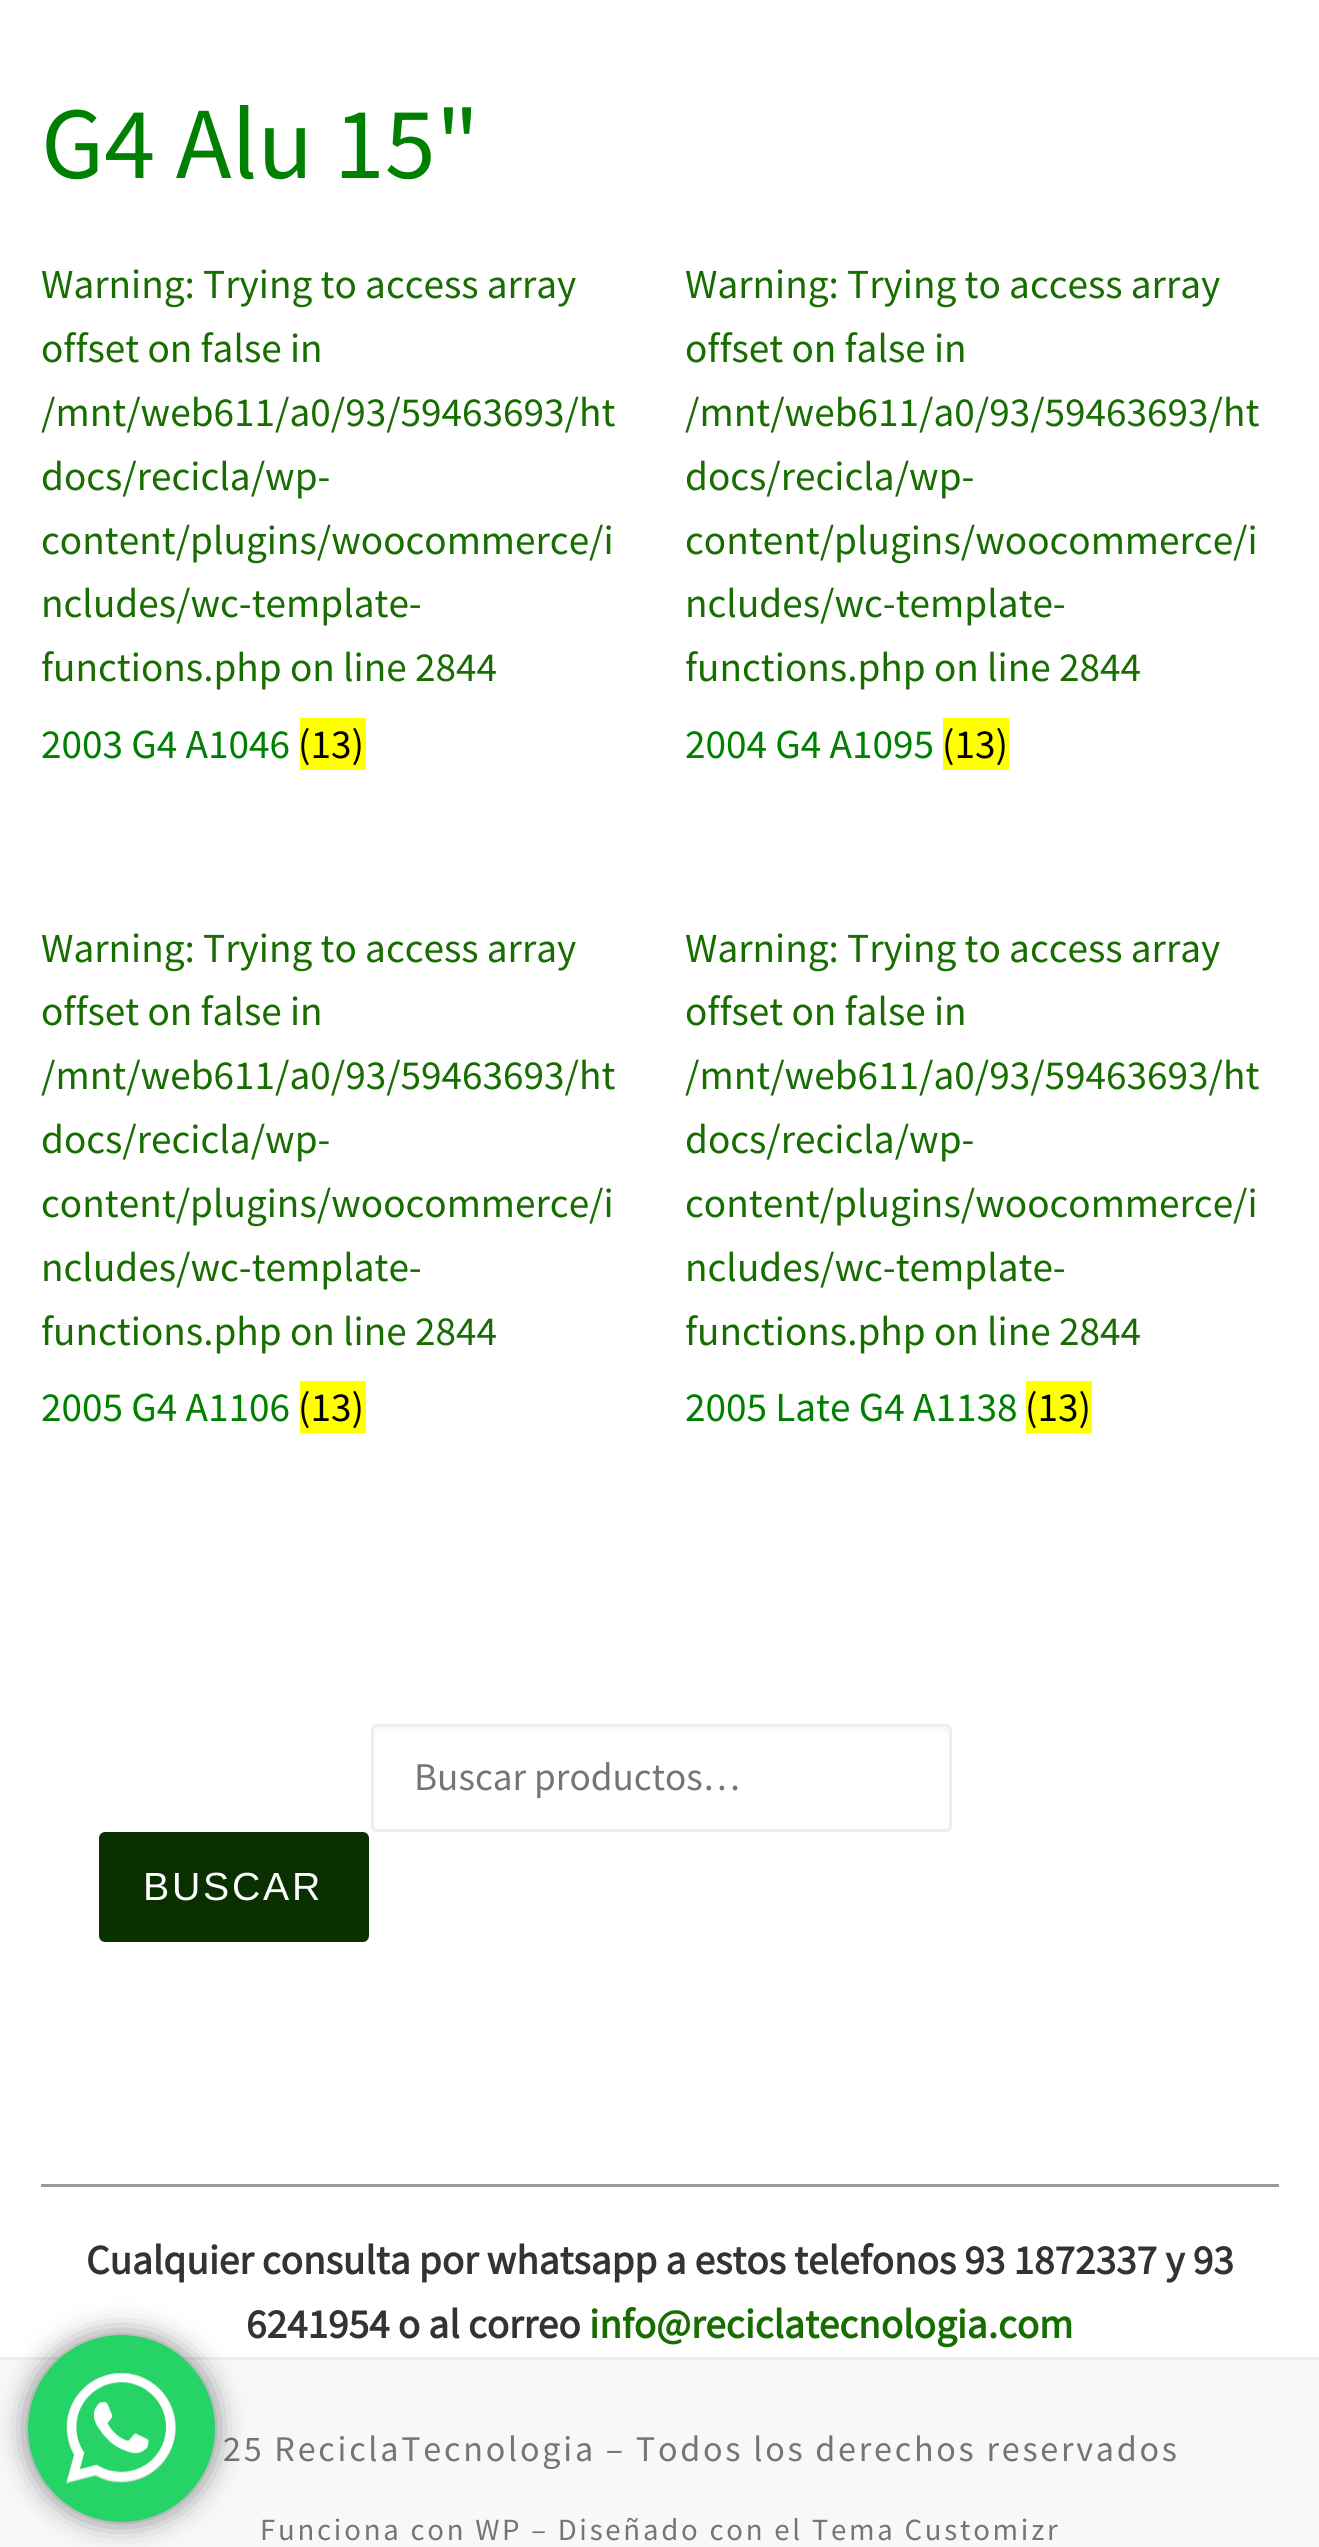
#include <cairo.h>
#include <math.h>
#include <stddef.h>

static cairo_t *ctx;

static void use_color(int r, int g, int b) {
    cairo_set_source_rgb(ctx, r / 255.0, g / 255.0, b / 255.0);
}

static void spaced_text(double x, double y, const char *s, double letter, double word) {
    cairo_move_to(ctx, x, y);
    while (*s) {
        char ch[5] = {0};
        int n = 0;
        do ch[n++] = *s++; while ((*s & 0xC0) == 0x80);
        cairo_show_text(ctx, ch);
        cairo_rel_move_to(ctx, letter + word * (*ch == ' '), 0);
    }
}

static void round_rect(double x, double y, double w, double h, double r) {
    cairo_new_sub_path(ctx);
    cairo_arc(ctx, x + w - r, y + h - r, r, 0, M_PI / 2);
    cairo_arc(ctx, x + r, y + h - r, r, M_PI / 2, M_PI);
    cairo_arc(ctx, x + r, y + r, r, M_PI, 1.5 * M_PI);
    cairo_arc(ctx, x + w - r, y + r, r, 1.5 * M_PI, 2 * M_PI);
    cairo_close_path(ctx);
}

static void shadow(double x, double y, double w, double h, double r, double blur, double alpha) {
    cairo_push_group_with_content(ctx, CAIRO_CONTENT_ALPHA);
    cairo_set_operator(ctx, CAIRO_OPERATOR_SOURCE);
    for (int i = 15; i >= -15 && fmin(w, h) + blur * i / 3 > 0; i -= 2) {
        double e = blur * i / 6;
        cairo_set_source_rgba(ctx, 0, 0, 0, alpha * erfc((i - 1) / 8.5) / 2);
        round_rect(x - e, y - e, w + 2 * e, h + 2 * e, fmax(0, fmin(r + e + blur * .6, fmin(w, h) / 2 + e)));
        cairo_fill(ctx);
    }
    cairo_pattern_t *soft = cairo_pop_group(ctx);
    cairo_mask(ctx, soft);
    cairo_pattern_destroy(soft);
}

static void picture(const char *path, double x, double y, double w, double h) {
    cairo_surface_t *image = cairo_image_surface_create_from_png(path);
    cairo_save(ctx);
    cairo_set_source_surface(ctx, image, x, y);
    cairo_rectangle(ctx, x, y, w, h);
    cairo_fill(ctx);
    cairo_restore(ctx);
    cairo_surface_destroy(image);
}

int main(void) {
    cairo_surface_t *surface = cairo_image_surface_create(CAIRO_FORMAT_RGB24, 1319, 2547);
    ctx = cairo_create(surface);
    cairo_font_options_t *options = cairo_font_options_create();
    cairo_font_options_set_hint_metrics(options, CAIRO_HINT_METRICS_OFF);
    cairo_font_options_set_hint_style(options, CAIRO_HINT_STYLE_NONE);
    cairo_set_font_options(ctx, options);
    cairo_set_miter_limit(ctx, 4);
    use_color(255, 255, 255);
    cairo_paint(ctx);
    cairo_select_font_face(ctx, "Source Sans Pro", CAIRO_FONT_SLANT_NORMAL, CAIRO_FONT_WEIGHT_NORMAL);
    cairo_set_font_size(ctx, 102.5);
    use_color(0, 128, 0);
    cairo_move_to(ctx, 41, 178);
    cairo_show_text(ctx, "G4 Alu 15\"");
    cairo_set_font_size(ctx, 41.25);
    use_color(23, 109, 0);
    cairo_move_to(ctx, 41, 298);
    cairo_show_text(ctx, "Warning: Trying to access array");
    cairo_move_to(ctx, 41, 362);
    cairo_show_text(ctx, "offset on false in");
    cairo_move_to(ctx, 41, 426);
    cairo_show_text(ctx, "/mnt/web611/a0/93/59463693/ht");
    cairo_move_to(ctx, 41, 490);
    cairo_show_text(ctx, "docs/recicla/wp-");
    cairo_move_to(ctx, 41, 554);
    cairo_show_text(ctx, "content/plugins/woocommerce/i");
    cairo_move_to(ctx, 41, 617);
    cairo_show_text(ctx, "ncludes/wc-template-");
    cairo_move_to(ctx, 41, 681);
    cairo_show_text(ctx, "functions.php on line 2844");
    use_color(0, 128, 0);
    cairo_move_to(ctx, 41, 758);
    cairo_show_text(ctx, "2003 G4 A1046");
    use_color(255, 255, 0);
    cairo_rectangle(ctx, 300, 718, 66, 52);
    cairo_fill(ctx);
    use_color(0, 0, 0);
    cairo_move_to(ctx, 298, 758);
    cairo_show_text(ctx, "(13)");
    use_color(23, 109, 0);
    cairo_move_to(ctx, 685, 298);
    cairo_show_text(ctx, "Warning: Trying to access array");
    cairo_move_to(ctx, 685, 362);
    cairo_show_text(ctx, "offset on false in");
    cairo_move_to(ctx, 685, 426);
    cairo_show_text(ctx, "/mnt/web611/a0/93/59463693/ht");
    cairo_move_to(ctx, 685, 490);
    cairo_show_text(ctx, "docs/recicla/wp-");
    cairo_move_to(ctx, 685, 554);
    cairo_show_text(ctx, "content/plugins/woocommerce/i");
    cairo_move_to(ctx, 685, 617);
    cairo_show_text(ctx, "ncludes/wc-template-");
    cairo_move_to(ctx, 685, 681);
    cairo_show_text(ctx, "functions.php on line 2844");
    use_color(0, 128, 0);
    cairo_move_to(ctx, 685, 758);
    cairo_show_text(ctx, "2004 G4 A1095");
    use_color(255, 255, 0);
    cairo_rectangle(ctx, 943, 718, 66, 52);
    cairo_fill(ctx);
    use_color(0, 0, 0);
    cairo_move_to(ctx, 942, 758);
    cairo_show_text(ctx, "(13)");
    use_color(23, 109, 0);
    cairo_move_to(ctx, 41, 962);
    cairo_show_text(ctx, "Warning: Trying to access array");
    cairo_move_to(ctx, 41, 1025);
    cairo_show_text(ctx, "offset on false in");
    cairo_move_to(ctx, 41, 1089);
    cairo_show_text(ctx, "/mnt/web611/a0/93/59463693/ht");
    cairo_move_to(ctx, 41, 1153);
    cairo_show_text(ctx, "docs/recicla/wp-");
    cairo_move_to(ctx, 41, 1217);
    cairo_show_text(ctx, "content/plugins/woocommerce/i");
    cairo_move_to(ctx, 41, 1281);
    cairo_show_text(ctx, "ncludes/wc-template-");
    cairo_move_to(ctx, 41, 1345);
    cairo_show_text(ctx, "functions.php on line 2844");
    use_color(0, 128, 0);
    cairo_move_to(ctx, 41, 1421);
    cairo_show_text(ctx, "2005 G4 A1106");
    use_color(255, 255, 0);
    cairo_rectangle(ctx, 300, 1381, 66, 52);
    cairo_fill(ctx);
    use_color(0, 0, 0);
    cairo_move_to(ctx, 298, 1421);
    cairo_show_text(ctx, "(13)");
    use_color(23, 109, 0);
    cairo_move_to(ctx, 685, 962);
    cairo_show_text(ctx, "Warning: Trying to access array");
    cairo_move_to(ctx, 685, 1025);
    cairo_show_text(ctx, "offset on false in");
    cairo_move_to(ctx, 685, 1089);
    cairo_show_text(ctx, "/mnt/web611/a0/93/59463693/ht");
    cairo_move_to(ctx, 685, 1153);
    cairo_show_text(ctx, "docs/recicla/wp-");
    cairo_move_to(ctx, 685, 1217);
    cairo_show_text(ctx, "content/plugins/woocommerce/i");
    cairo_move_to(ctx, 685, 1281);
    cairo_show_text(ctx, "ncludes/wc-template-");
    cairo_move_to(ctx, 685, 1345);
    cairo_show_text(ctx, "functions.php on line 2844");
    use_color(0, 128, 0);
    cairo_move_to(ctx, 685, 1421);
    cairo_show_text(ctx, "2005 Late G4 A1138");
    use_color(255, 255, 0);
    cairo_rectangle(ctx, 1026, 1381, 66, 52);
    cairo_fill(ctx);
    use_color(0, 0, 0);
    cairo_move_to(ctx, 1025, 1421);
    cairo_show_text(ctx, "(13)");
    use_color(249, 249, 249);
    cairo_new_path(ctx);
    cairo_move_to(ctx, 377, 1732);
    cairo_line_to(ctx, 946, 1732);
    cairo_curve_to(ctx, 948, 1732, 949, 1734, 949, 1735);
    cairo_line_to(ctx, 949, 1730);
    cairo_curve_to(ctx, 949, 1728, 948, 1727, 946, 1727);
    cairo_line_to(ctx, 377, 1727);
    cairo_curve_to(ctx, 375, 1727, 374, 1728, 374, 1730);
    cairo_line_to(ctx, 374, 1735);
    cairo_curve_to(ctx, 374, 1734, 375, 1732, 377, 1732);
    cairo_close_path(ctx);
    cairo_fill(ctx);
    round_rect(372.5, 1725.5, 578, 105, 4.5);
    use_color(236, 238, 239);
    cairo_set_line_width(ctx, 3);
    cairo_stroke(ctx);
    cairo_set_font_size(ctx, 39.25);
    use_color(117, 117, 117);
    cairo_move_to(ctx, 414, 1790);
    cairo_show_text(ctx, "Buscar productos…");
    use_color(10, 48, 0);
    round_rect(102, 1835, 264, 104, 3);
    cairo_fill_preserve(ctx);
    cairo_set_line_width(ctx, 6);
    cairo_stroke(ctx);
    cairo_select_font_face(ctx, "Liberation Sans", CAIRO_FONT_SLANT_NORMAL, CAIRO_FONT_WEIGHT_NORMAL);
    use_color(255, 255, 255);
    spaced_text(143, 1900, "BUSCAR", 2.75, 0);
    use_color(153, 153, 153);
    cairo_rectangle(ctx, 41, 2184, 1238, 3);
    cairo_fill(ctx);
    cairo_select_font_face(ctx, "Source Sans Pro", CAIRO_FONT_SLANT_NORMAL, CAIRO_FONT_WEIGHT_BOLD);
    cairo_set_font_size(ctx, 41.25);
    use_color(51, 51, 51);
    cairo_move_to(ctx, 86, 2274);
    cairo_show_text(ctx, "Cualquier consulta por whatsapp a estos telefonos 93 1872337 y 93");
    cairo_move_to(ctx, 246, 2338);
    cairo_show_text(ctx, "6241954 o al correo");
    use_color(23, 109, 0);
    cairo_move_to(ctx, 589, 2338);
    cairo_show_text(ctx, "info@reciclatecnologia.com");
    use_color(236, 238, 239);
    cairo_rectangle(ctx, 0, 2357, 1319, 3);
    cairo_fill(ctx);
    use_color(247, 248, 249);
    cairo_rectangle(ctx, 0, 2360, 1319, 187);
    cairo_fill(ctx);
    cairo_select_font_face(ctx, "Source Sans Pro", CAIRO_FONT_SLANT_NORMAL, CAIRO_FONT_WEIGHT_NORMAL);
    cairo_set_font_size(ctx, 36.1);
    use_color(117, 117, 117);
    spaced_text(223, 2461, "25 ReciclaTecnologia – Todos los derechos reservados", 2.75, 0);
    cairo_set_font_size(ctx, 30.8);
    spaced_text(260, 2540, "Funciona con WP – Diseñado con el Tema Customizr", 2.75, 0);
    use_color(0, 0, 0);
    shadow(28, 2335, 187, 187, 93.5, 15, 0.5);
    use_color(37, 211, 102);
    cairo_arc(ctx, 121.5, 2428.5, 93.5, 0, 2 * M_PI);
    cairo_fill(ctx);
    picture("img1.png", 66, 2373, 110, 111);
    cairo_surface_write_to_png(surface, "result.png");
    cairo_font_options_destroy(options);
    cairo_destroy(ctx);
    cairo_surface_destroy(surface);
    return 0;
}
